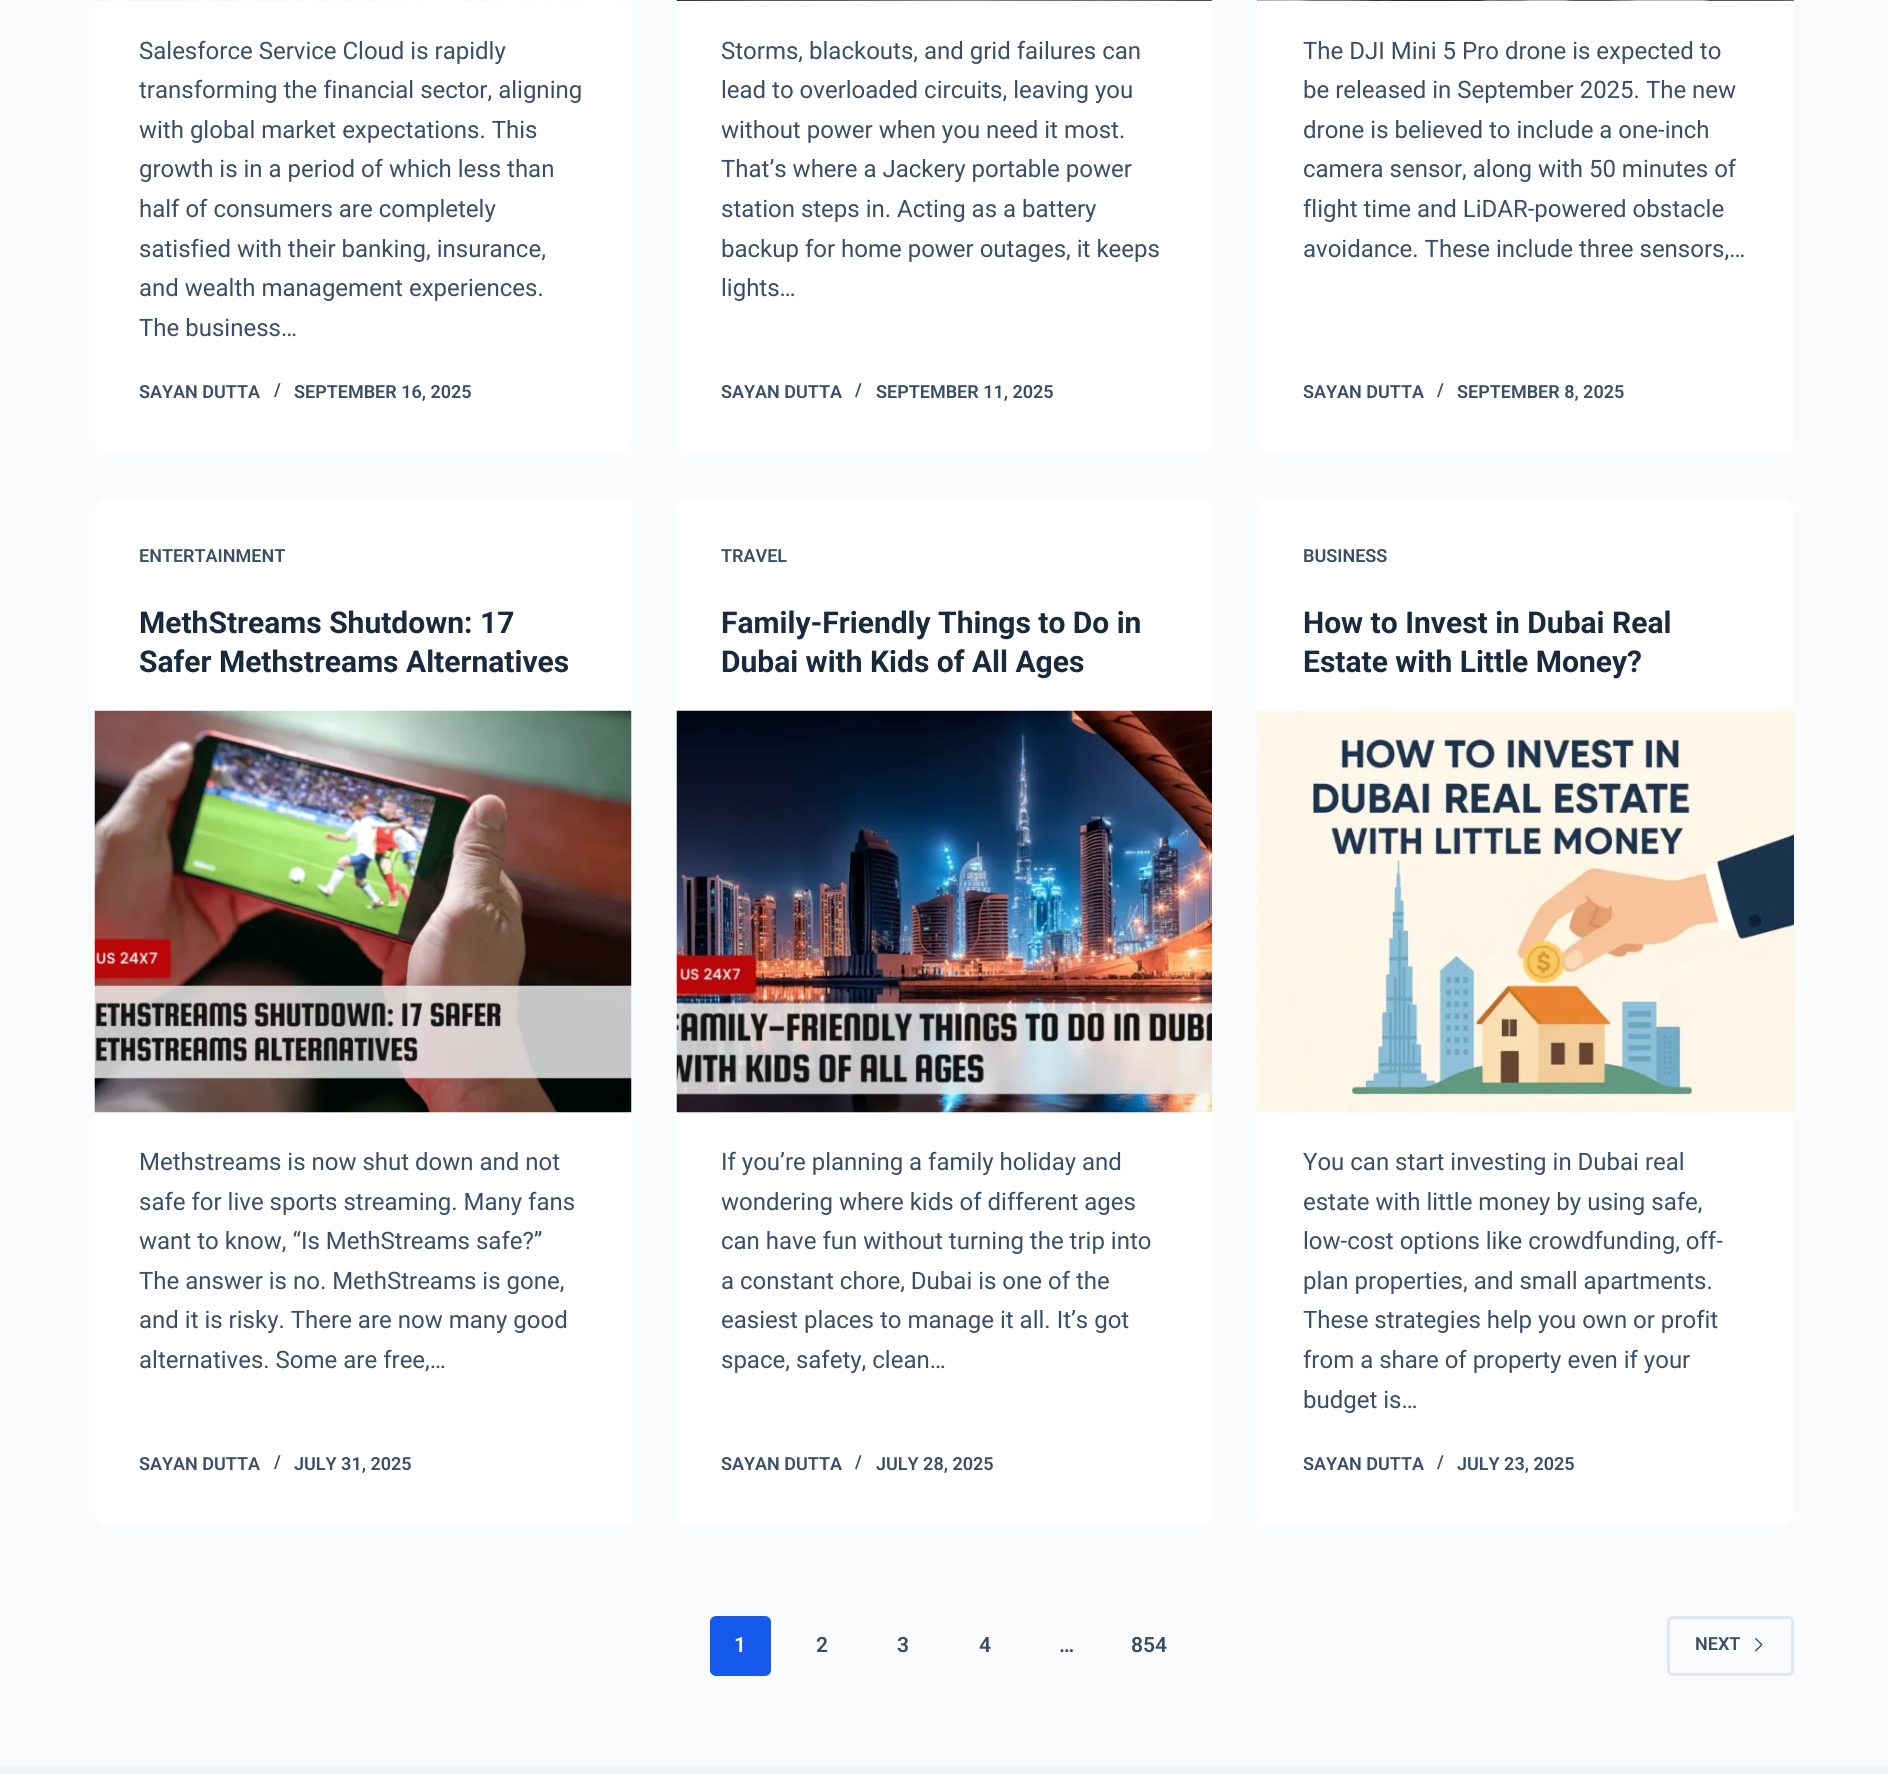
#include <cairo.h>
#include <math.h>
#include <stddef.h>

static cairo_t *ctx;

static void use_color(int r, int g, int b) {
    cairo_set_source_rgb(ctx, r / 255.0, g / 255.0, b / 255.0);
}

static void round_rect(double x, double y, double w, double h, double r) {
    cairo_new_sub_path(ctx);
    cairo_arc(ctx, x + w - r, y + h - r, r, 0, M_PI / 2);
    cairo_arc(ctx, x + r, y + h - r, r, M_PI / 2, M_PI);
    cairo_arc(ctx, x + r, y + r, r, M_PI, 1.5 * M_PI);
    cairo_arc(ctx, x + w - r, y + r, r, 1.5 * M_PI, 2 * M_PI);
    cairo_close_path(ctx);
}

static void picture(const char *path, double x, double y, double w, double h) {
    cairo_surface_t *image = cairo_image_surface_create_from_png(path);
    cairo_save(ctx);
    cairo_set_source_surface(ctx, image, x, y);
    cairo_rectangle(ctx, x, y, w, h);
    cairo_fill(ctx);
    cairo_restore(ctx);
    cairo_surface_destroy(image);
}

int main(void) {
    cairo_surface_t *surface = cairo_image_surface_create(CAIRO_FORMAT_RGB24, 1888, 1774);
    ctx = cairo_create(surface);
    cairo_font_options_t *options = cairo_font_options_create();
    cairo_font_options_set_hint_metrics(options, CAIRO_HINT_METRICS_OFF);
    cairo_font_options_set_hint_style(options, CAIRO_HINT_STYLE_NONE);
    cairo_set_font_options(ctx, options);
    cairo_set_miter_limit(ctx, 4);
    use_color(250, 251, 252);
    cairo_paint(ctx);
    use_color(255, 255, 255);
    round_rect(95, -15, 537, 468, 15);
    cairo_fill(ctx);
    picture("img1.png", 95, 0, 536, 1);
    cairo_select_font_face(ctx, "Roboto", CAIRO_FONT_SLANT_NORMAL, CAIRO_FONT_WEIGHT_NORMAL);
    cairo_set_font_size(ctx, 24);
    use_color(58, 79, 102);
    cairo_move_to(ctx, 139, 59);
    cairo_show_text(ctx, "Salesforce Service Cloud is rapidly");
    cairo_move_to(ctx, 139, 98);
    cairo_show_text(ctx, "transforming the financial sector, aligning");
    cairo_move_to(ctx, 139, 138);
    cairo_show_text(ctx, "with global market expectations. This");
    cairo_move_to(ctx, 139, 177);
    cairo_show_text(ctx, "growth is in a period of which less than");
    cairo_move_to(ctx, 139, 217);
    cairo_show_text(ctx, "half of consumers are completely");
    cairo_move_to(ctx, 139, 257);
    cairo_show_text(ctx, "satisfied with their banking, insurance,");
    cairo_move_to(ctx, 139, 296);
    cairo_show_text(ctx, "and wealth management experiences.");
    cairo_move_to(ctx, 139, 336);
    cairo_show_text(ctx, "The business…");
    cairo_select_font_face(ctx, "Roboto SemiBold", CAIRO_FONT_SLANT_NORMAL, CAIRO_FONT_WEIGHT_NORMAL);
    cairo_set_font_size(ctx, 18);
    cairo_move_to(ctx, 139, 398);
    cairo_show_text(ctx, "SAYAN DUTTA");
    cairo_move_to(ctx, 274, 396);
    cairo_show_text(ctx, "/");
    cairo_move_to(ctx, 294, 398);
    cairo_show_text(ctx, "SEPTEMBER 16, 2025");
    use_color(255, 255, 255);
    round_rect(677, -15, 535, 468, 15);
    cairo_fill(ctx);
    picture("img2.png", 676, 0, 536, 1);
    cairo_select_font_face(ctx, "Roboto", CAIRO_FONT_SLANT_NORMAL, CAIRO_FONT_WEIGHT_NORMAL);
    cairo_set_font_size(ctx, 24);
    use_color(58, 79, 102);
    cairo_move_to(ctx, 721, 59);
    cairo_show_text(ctx, "Storms, blackouts, and grid failures can");
    cairo_move_to(ctx, 721, 98);
    cairo_show_text(ctx, "lead to overloaded circuits, leaving you");
    cairo_move_to(ctx, 721, 138);
    cairo_show_text(ctx, "without power when you need it most.");
    cairo_move_to(ctx, 721, 177);
    cairo_show_text(ctx, "That’s where a Jackery portable power");
    cairo_move_to(ctx, 721, 217);
    cairo_show_text(ctx, "station steps in. Acting as a battery");
    cairo_move_to(ctx, 721, 257);
    cairo_show_text(ctx, "backup for home power outages, it keeps");
    cairo_move_to(ctx, 721, 296);
    cairo_show_text(ctx, "lights…");
    cairo_select_font_face(ctx, "Roboto SemiBold", CAIRO_FONT_SLANT_NORMAL, CAIRO_FONT_WEIGHT_NORMAL);
    cairo_set_font_size(ctx, 18);
    cairo_move_to(ctx, 721, 398);
    cairo_show_text(ctx, "SAYAN DUTTA");
    cairo_move_to(ctx, 855, 396);
    cairo_show_text(ctx, "/");
    cairo_move_to(ctx, 876, 398);
    cairo_show_text(ctx, "SEPTEMBER 11, 2025");
    use_color(255, 255, 255);
    round_rect(1257, -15, 537, 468, 15);
    cairo_fill(ctx);
    picture("img3.png", 1257, 0, 537, 1);
    cairo_select_font_face(ctx, "Roboto", CAIRO_FONT_SLANT_NORMAL, CAIRO_FONT_WEIGHT_NORMAL);
    cairo_set_font_size(ctx, 24);
    use_color(58, 79, 102);
    cairo_move_to(ctx, 1303, 59);
    cairo_show_text(ctx, "The DJI Mini 5 Pro drone is expected to");
    cairo_move_to(ctx, 1303, 98);
    cairo_show_text(ctx, "be released in September 2025. The new");
    cairo_move_to(ctx, 1303, 138);
    cairo_show_text(ctx, "drone is believed to include a one-inch");
    cairo_move_to(ctx, 1303, 177);
    cairo_show_text(ctx, "camera sensor, along with 50 minutes of");
    cairo_move_to(ctx, 1303, 217);
    cairo_show_text(ctx, "flight time and LiDAR-powered obstacle");
    cairo_move_to(ctx, 1303, 257);
    cairo_show_text(ctx, "avoidance. These include three sensors,…");
    cairo_select_font_face(ctx, "Roboto SemiBold", CAIRO_FONT_SLANT_NORMAL, CAIRO_FONT_WEIGHT_NORMAL);
    cairo_set_font_size(ctx, 18);
    cairo_move_to(ctx, 1303, 398);
    cairo_show_text(ctx, "SAYAN DUTTA");
    cairo_move_to(ctx, 1437, 396);
    cairo_show_text(ctx, "/");
    cairo_move_to(ctx, 1457, 398);
    cairo_show_text(ctx, "SEPTEMBER 8, 2025");
    use_color(255, 255, 255);
    round_rect(95, 498, 537, 1028, 15);
    cairo_fill(ctx);
    use_color(58, 79, 102);
    cairo_move_to(ctx, 139, 562);
    cairo_show_text(ctx, "ENTERTAINMENT");
    cairo_select_font_face(ctx, "Roboto", CAIRO_FONT_SLANT_NORMAL, CAIRO_FONT_WEIGHT_BOLD);
    cairo_set_font_size(ctx, 30);
    use_color(25, 42, 61);
    cairo_move_to(ctx, 139, 633);
    cairo_show_text(ctx, "MethStreams Shutdown: 17");
    cairo_move_to(ctx, 139, 672);
    cairo_show_text(ctx, "Safer Methstreams Alternatives");
    picture("img4.png", 94, 710, 538, 403);
    cairo_select_font_face(ctx, "Roboto", CAIRO_FONT_SLANT_NORMAL, CAIRO_FONT_WEIGHT_NORMAL);
    cairo_set_font_size(ctx, 24);
    use_color(58, 79, 102);
    cairo_move_to(ctx, 139, 1170);
    cairo_show_text(ctx, "Methstreams is now shut down and not");
    cairo_move_to(ctx, 139, 1210);
    cairo_show_text(ctx, "safe for live sports streaming. Many fans");
    cairo_move_to(ctx, 139, 1249);
    cairo_show_text(ctx, "want to know, “Is MethStreams safe?”");
    cairo_move_to(ctx, 139, 1289);
    cairo_show_text(ctx, "The answer is no. MethStreams is gone,");
    cairo_move_to(ctx, 139, 1328);
    cairo_show_text(ctx, "and it is risky. There are now many good");
    cairo_move_to(ctx, 139, 1368);
    cairo_show_text(ctx, "alternatives. Some are free,…");
    cairo_select_font_face(ctx, "Roboto SemiBold", CAIRO_FONT_SLANT_NORMAL, CAIRO_FONT_WEIGHT_NORMAL);
    cairo_set_font_size(ctx, 18);
    cairo_move_to(ctx, 139, 1470);
    cairo_show_text(ctx, "SAYAN DUTTA");
    cairo_move_to(ctx, 274, 1468);
    cairo_show_text(ctx, "/");
    cairo_move_to(ctx, 294, 1470);
    cairo_show_text(ctx, "JULY 31, 2025");
    use_color(255, 255, 255);
    round_rect(677, 498, 535, 1028, 15);
    cairo_fill(ctx);
    use_color(58, 79, 102);
    cairo_move_to(ctx, 721, 562);
    cairo_show_text(ctx, "TRAVEL");
    cairo_select_font_face(ctx, "Roboto", CAIRO_FONT_SLANT_NORMAL, CAIRO_FONT_WEIGHT_BOLD);
    cairo_set_font_size(ctx, 30);
    use_color(25, 42, 61);
    cairo_move_to(ctx, 721, 633);
    cairo_show_text(ctx, "Family-Friendly Things to Do in");
    cairo_move_to(ctx, 721, 672);
    cairo_show_text(ctx, "Dubai with Kids of All Ages");
    picture("img5.png", 676, 710, 536, 403);
    cairo_select_font_face(ctx, "Roboto", CAIRO_FONT_SLANT_NORMAL, CAIRO_FONT_WEIGHT_NORMAL);
    cairo_set_font_size(ctx, 24);
    use_color(58, 79, 102);
    cairo_move_to(ctx, 721, 1170);
    cairo_show_text(ctx, "If you’re planning a family holiday and");
    cairo_move_to(ctx, 721, 1210);
    cairo_show_text(ctx, "wondering where kids of different ages");
    cairo_move_to(ctx, 721, 1249);
    cairo_show_text(ctx, "can have fun without turning the trip into");
    cairo_move_to(ctx, 721, 1289);
    cairo_show_text(ctx, "a constant chore, Dubai is one of the");
    cairo_move_to(ctx, 721, 1328);
    cairo_show_text(ctx, "easiest places to manage it all. It’s got");
    cairo_move_to(ctx, 721, 1368);
    cairo_show_text(ctx, "space, safety, clean…");
    cairo_select_font_face(ctx, "Roboto SemiBold", CAIRO_FONT_SLANT_NORMAL, CAIRO_FONT_WEIGHT_NORMAL);
    cairo_set_font_size(ctx, 18);
    cairo_move_to(ctx, 721, 1470);
    cairo_show_text(ctx, "SAYAN DUTTA");
    cairo_move_to(ctx, 855, 1468);
    cairo_show_text(ctx, "/");
    cairo_move_to(ctx, 876, 1470);
    cairo_show_text(ctx, "JULY 28, 2025");
    use_color(255, 255, 255);
    round_rect(1257, 498, 537, 1028, 15);
    cairo_fill(ctx);
    use_color(58, 79, 102);
    cairo_move_to(ctx, 1303, 562);
    cairo_show_text(ctx, "BUSINESS");
    cairo_select_font_face(ctx, "Roboto", CAIRO_FONT_SLANT_NORMAL, CAIRO_FONT_WEIGHT_BOLD);
    cairo_set_font_size(ctx, 30);
    use_color(25, 42, 61);
    cairo_move_to(ctx, 1303, 633);
    cairo_show_text(ctx, "How to Invest in Dubai Real");
    cairo_move_to(ctx, 1303, 672);
    cairo_show_text(ctx, "Estate with Little Money?");
    picture("img6.png", 1257, 710, 537, 403);
    cairo_select_font_face(ctx, "Roboto", CAIRO_FONT_SLANT_NORMAL, CAIRO_FONT_WEIGHT_NORMAL);
    cairo_set_font_size(ctx, 24);
    use_color(58, 79, 102);
    cairo_move_to(ctx, 1303, 1170);
    cairo_show_text(ctx, "You can start investing in Dubai real");
    cairo_move_to(ctx, 1303, 1210);
    cairo_show_text(ctx, "estate with little money by using safe,");
    cairo_move_to(ctx, 1303, 1249);
    cairo_show_text(ctx, "low-cost options like crowdfunding, off-");
    cairo_move_to(ctx, 1303, 1289);
    cairo_show_text(ctx, "plan properties, and small apartments.");
    cairo_move_to(ctx, 1303, 1328);
    cairo_show_text(ctx, "These strategies help you own or profit");
    cairo_move_to(ctx, 1303, 1368);
    cairo_show_text(ctx, "from a share of property even if your");
    cairo_move_to(ctx, 1303, 1408);
    cairo_show_text(ctx, "budget is…");
    cairo_select_font_face(ctx, "Roboto SemiBold", CAIRO_FONT_SLANT_NORMAL, CAIRO_FONT_WEIGHT_NORMAL);
    cairo_set_font_size(ctx, 18);
    cairo_move_to(ctx, 1303, 1470);
    cairo_show_text(ctx, "SAYAN DUTTA");
    cairo_move_to(ctx, 1437, 1468);
    cairo_show_text(ctx, "/");
    cairo_move_to(ctx, 1457, 1470);
    cairo_show_text(ctx, "JULY 23, 2025");
    use_color(21, 89, 237);
    round_rect(710, 1616, 61, 60, 6);
    cairo_fill(ctx);
    cairo_set_font_size(ctx, 21);
    use_color(255, 255, 255);
    cairo_move_to(ctx, 734, 1652);
    cairo_show_text(ctx, "1");
    use_color(58, 79, 102);
    cairo_move_to(ctx, 816, 1652);
    cairo_show_text(ctx, "2");
    cairo_move_to(ctx, 897, 1652);
    cairo_show_text(ctx, "3");
    cairo_move_to(ctx, 979, 1652);
    cairo_show_text(ctx, "4");
    cairo_move_to(ctx, 1059, 1652);
    cairo_show_text(ctx, "…");
    cairo_move_to(ctx, 1131, 1652);
    cairo_show_text(ctx, "854");
    round_rect(1668.5, 1617.5, 124, 57, 4.5);
    use_color(225, 232, 237);
    cairo_set_line_width(ctx, 3);
    cairo_stroke(ctx);
    cairo_set_font_size(ctx, 18);
    use_color(58, 79, 102);
    cairo_move_to(ctx, 1695, 1650);
    cairo_show_text(ctx, "NEXT");
    picture("img7.png", 1755, 1638, 8, 14);
    use_color(242, 245, 247);
    cairo_rectangle(ctx, 0, 1766, 1888, 8);
    cairo_fill(ctx);
    cairo_surface_write_to_png(surface, "result.png");
    cairo_font_options_destroy(options);
    cairo_destroy(ctx);
    cairo_surface_destroy(surface);
    return 0;
}
